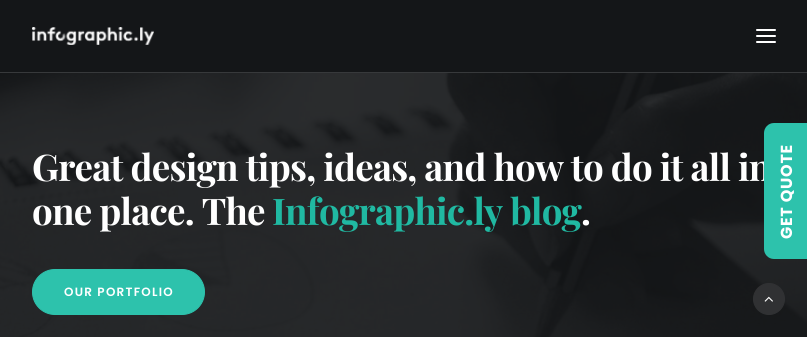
#include <cairo.h>
#include <math.h>
#include <stddef.h>

static cairo_t *ctx;

static void use_color(int r, int g, int b) {
    cairo_set_source_rgb(ctx, r / 255.0, g / 255.0, b / 255.0);
}

static void spaced_text(double x, double y, const char *s, double letter, double word) {
    cairo_move_to(ctx, x, y);
    while (*s) {
        char ch[5] = {0};
        int n = 0;
        do ch[n++] = *s++; while ((*s & 0xC0) == 0x80);
        cairo_show_text(ctx, ch);
        cairo_rel_move_to(ctx, letter + word * (*ch == ' '), 0);
    }
}

static void round_rect(double x, double y, double w, double h, double r) {
    cairo_new_sub_path(ctx);
    cairo_arc(ctx, x + w - r, y + h - r, r, 0, M_PI / 2);
    cairo_arc(ctx, x + r, y + h - r, r, M_PI / 2, M_PI);
    cairo_arc(ctx, x + r, y + r, r, M_PI, 1.5 * M_PI);
    cairo_arc(ctx, x + w - r, y + r, r, 1.5 * M_PI, 2 * M_PI);
    cairo_close_path(ctx);
}

static void picture(const char *path, double x, double y, double w, double h) {
    cairo_surface_t *image = cairo_image_surface_create_from_png(path);
    cairo_save(ctx);
    cairo_set_source_surface(ctx, image, x, y);
    cairo_rectangle(ctx, x, y, w, h);
    cairo_fill(ctx);
    cairo_restore(ctx);
    cairo_surface_destroy(image);
}

int main(void) {
    cairo_surface_t *surface = cairo_image_surface_create(CAIRO_FORMAT_RGB24, 807, 337);
    ctx = cairo_create(surface);
    cairo_font_options_t *options = cairo_font_options_create();
    cairo_font_options_set_hint_metrics(options, CAIRO_HINT_METRICS_OFF);
    cairo_font_options_set_hint_style(options, CAIRO_HINT_STYLE_NONE);
    cairo_set_font_options(ctx, options);
    cairo_set_miter_limit(ctx, 4);
    use_color(255, 255, 255);
    cairo_paint(ctx);
    use_color(20, 22, 24);
    cairo_rectangle(ctx, 0, 0, 807, 72);
    cairo_fill(ctx);
    use_color(55, 57, 59);
    cairo_rectangle(ctx, 0, 72, 807, 1);
    cairo_fill(ctx);
    picture("img1.png", 32, 27, 122, 18);
    use_color(255, 255, 255);
    round_rect(756, 35, 20, 2, 1);
    cairo_fill(ctx);
    round_rect(756, 29, 20, 2, 1);
    cairo_fill(ctx);
    round_rect(756, 41, 20, 2, 1);
    cairo_fill(ctx);
    picture("img2.png", 0, 73, 807, 264);
    cairo_select_font_face(ctx, "Playfair Display", CAIRO_FONT_SLANT_NORMAL, CAIRO_FONT_WEIGHT_BOLD);
    cairo_set_font_size(ctx, 36.7);
    spaced_text(32, 181, "Great design tips, ideas, and how to do it all in", -0.75, 0);
    spaced_text(32, 225, "one place. The", -0.75, 0);
    use_color(32, 185, 162);
    spaced_text(272, 225, "Infographic.ly blog", -0.75, 0);
    use_color(255, 255, 255);
    spaced_text(581, 225, ".", -0.75, 0);
    use_color(45, 194, 172);
    round_rect(32.5, 269.5, 172, 45, 22.5);
    cairo_fill_preserve(ctx);
    cairo_set_line_width(ctx, 1);
    cairo_stroke(ctx);
    cairo_select_font_face(ctx, "Poppins SemiBold", CAIRO_FONT_SLANT_NORMAL, CAIRO_FONT_WEIGHT_NORMAL);
    cairo_set_font_size(ctx, 12);
    use_color(255, 255, 255);
    spaced_text(64, 296, "OUR PORTFOLIO", 1.25, 0);
    use_color(45, 194, 172);
    cairo_new_path(ctx);
    cairo_move_to(ctx, 764, 249);
    cairo_line_to(ctx, 764, 133);
    cairo_curve_to(ctx, 764, 128, 768, 123, 774, 123);
    cairo_line_to(ctx, 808, 123);
    cairo_line_to(ctx, 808, 259);
    cairo_line_to(ctx, 774, 259);
    cairo_curve_to(ctx, 768, 259, 764, 254, 764, 249);
    cairo_close_path(ctx);
    cairo_fill(ctx);
    cairo_select_font_face(ctx, "Poppins", CAIRO_FONT_SLANT_NORMAL, CAIRO_FONT_WEIGHT_BOLD);
    cairo_set_font_size(ctx, 16);
    use_color(255, 255, 255);
    cairo_save(ctx);
    cairo_translate(ctx, 792, 239);
    cairo_rotate(ctx, -90 * M_PI / 180);
    spaced_text(0, 0, "GET QUOTE", 0.75, 0);
    cairo_restore(ctx);
    use_color(48, 49, 51);
    cairo_new_path(ctx);
    cairo_arc(ctx, 769, 299, 15.5, 0, 2 * M_PI);
    cairo_fill_preserve(ctx);
    cairo_stroke(ctx);
    picture("img3.png", 764, 296, 9, 6);
    cairo_surface_write_to_png(surface, "result.png");
    cairo_font_options_destroy(options);
    cairo_destroy(ctx);
    cairo_surface_destroy(surface);
    return 0;
}
